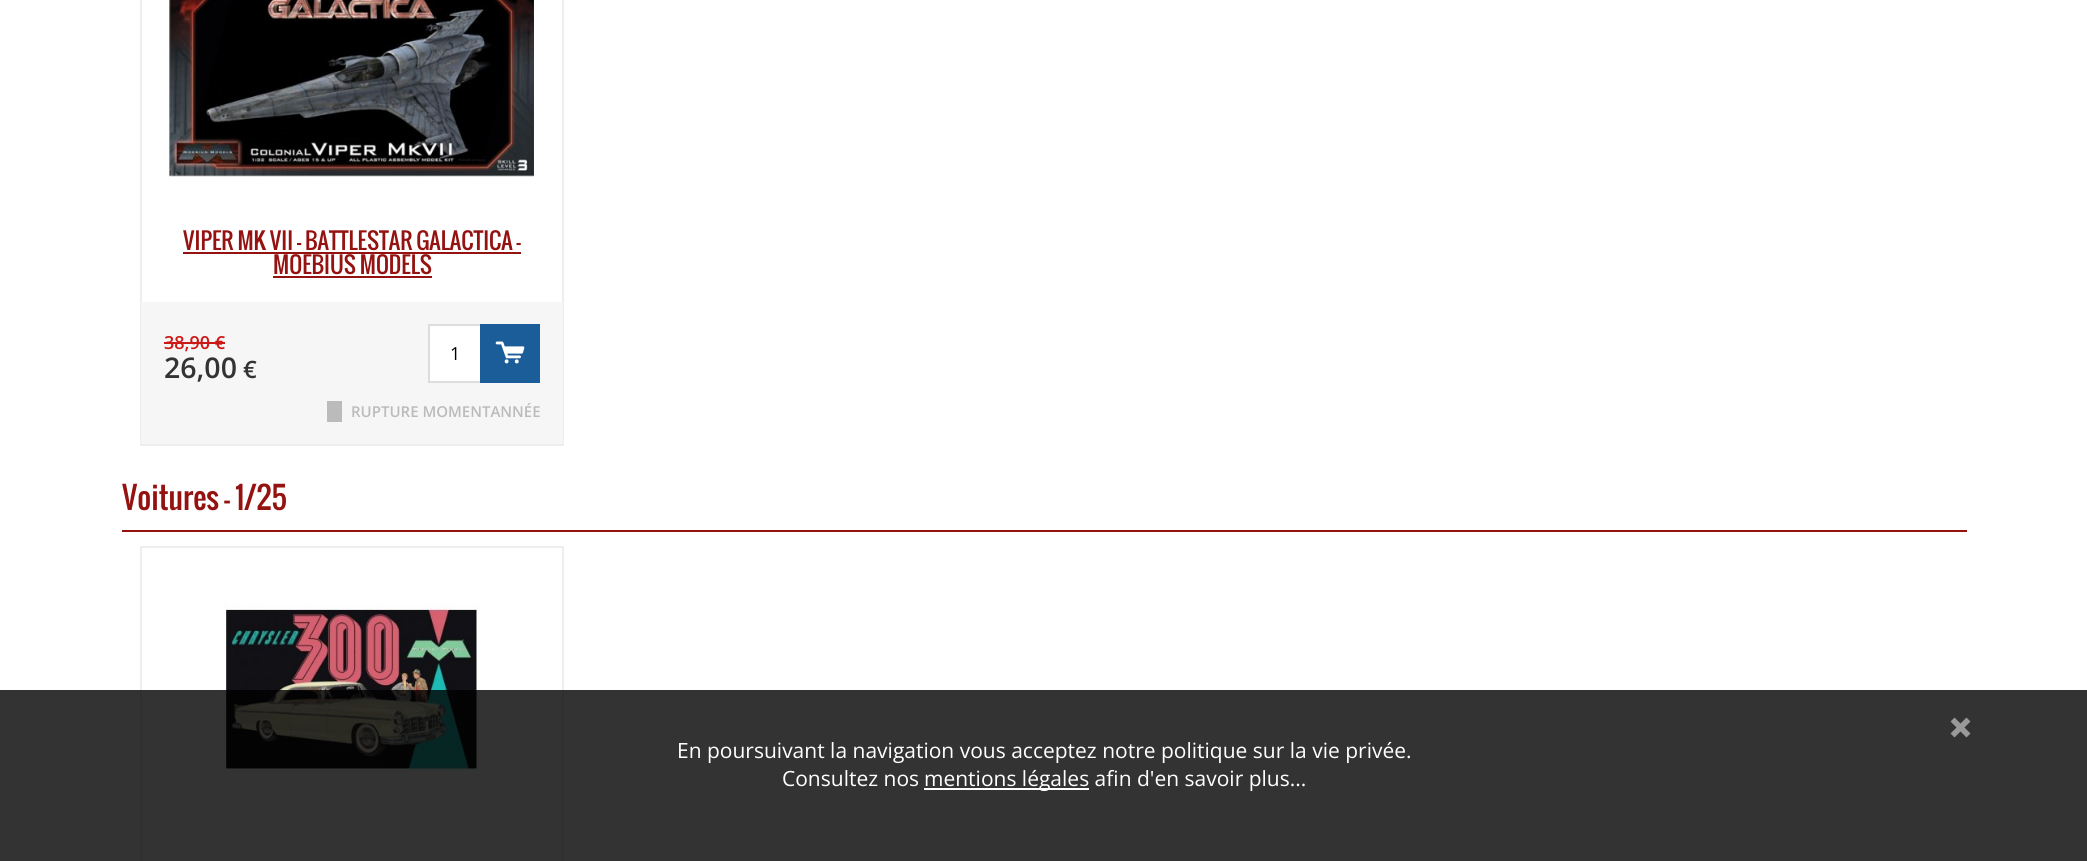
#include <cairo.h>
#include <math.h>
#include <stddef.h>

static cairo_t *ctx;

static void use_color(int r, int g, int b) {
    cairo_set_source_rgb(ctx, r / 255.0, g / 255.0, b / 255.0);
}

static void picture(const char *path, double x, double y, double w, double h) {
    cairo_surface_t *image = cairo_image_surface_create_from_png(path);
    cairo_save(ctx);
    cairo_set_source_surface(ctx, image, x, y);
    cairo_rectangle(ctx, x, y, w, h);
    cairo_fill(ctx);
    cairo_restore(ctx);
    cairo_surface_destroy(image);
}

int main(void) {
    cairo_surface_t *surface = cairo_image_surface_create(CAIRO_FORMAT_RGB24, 2087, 861);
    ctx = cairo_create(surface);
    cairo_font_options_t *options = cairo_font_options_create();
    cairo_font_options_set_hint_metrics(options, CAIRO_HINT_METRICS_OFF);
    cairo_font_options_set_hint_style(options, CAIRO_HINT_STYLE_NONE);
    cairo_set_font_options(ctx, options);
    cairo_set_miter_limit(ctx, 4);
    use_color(255, 255, 255);
    cairo_paint(ctx);
    cairo_rectangle(ctx, 141, -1, 422, 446);
    use_color(238, 238, 238);
    cairo_stroke(ctx);
    picture("img1.png", 169, 0, 365, 177);
    picture("img2.png", 169, 0, 1, 177);
    cairo_select_font_face(ctx, "Oswald", CAIRO_FONT_SLANT_NORMAL, CAIRO_FONT_WEIGHT_NORMAL);
    cairo_set_font_size(ctx, 22.5);
    use_color(148, 18, 16);
    cairo_move_to(ctx, 183, 250);
    cairo_show_text(ctx, "VIPER MK VII - BATTLESTAR GALACTICA -");
    cairo_move_to(ctx, 273, 274);
    cairo_show_text(ctx, "MOEBIUS MODELS");
    cairo_rectangle(ctx, 183, 252, 338, 2);
    cairo_fill(ctx);
    cairo_rectangle(ctx, 273, 276, 159, 2);
    cairo_fill(ctx);
    use_color(246, 246, 246);
    cairo_rectangle(ctx, 141, 302, 422, 142);
    cairo_fill(ctx);
    cairo_select_font_face(ctx, "Open Sans SemiBold", CAIRO_FONT_SLANT_NORMAL, CAIRO_FONT_WEIGHT_NORMAL);
    cairo_set_font_size(ctx, 18);
    use_color(204, 25, 21);
    cairo_move_to(ctx, 164, 349);
    cairo_show_text(ctx, "38,90 €");
    cairo_rectangle(ctx, 164, 342, 61, 2);
    cairo_fill(ctx);
    cairo_set_font_size(ctx, 28.5);
    use_color(51, 51, 51);
    cairo_move_to(ctx, 164, 378);
    cairo_show_text(ctx, "26,00");
    cairo_set_font_size(ctx, 24);
    cairo_move_to(ctx, 243, 378);
    cairo_show_text(ctx, "€");
    use_color(255, 255, 255);
    cairo_rectangle(ctx, 430, 326, 50, 55);
    cairo_fill(ctx);
    use_color(221, 221, 221);
    cairo_rectangle(ctx, 428, 324, 52, 2);
    cairo_fill(ctx);
    cairo_rectangle(ctx, 428, 381, 52, 2);
    cairo_fill(ctx);
    cairo_rectangle(ctx, 428, 324, 2, 59);
    cairo_fill(ctx);
    cairo_select_font_face(ctx, "Open Sans", CAIRO_FONT_SLANT_NORMAL, CAIRO_FONT_WEIGHT_NORMAL);
    cairo_set_font_size(ctx, 18);
    use_color(0, 0, 0);
    cairo_move_to(ctx, 450, 360);
    cairo_show_text(ctx, "1");
    use_color(27, 93, 153);
    cairo_rectangle(ctx, 480, 324, 60, 59);
    cairo_fill(ctx);
    picture("img3.png", 495, 341, 30, 23);
    use_color(187, 187, 187);
    cairo_rectangle(ctx, 327, 401, 15, 21);
    cairo_fill(ctx);
    cairo_select_font_face(ctx, "Open Sans SemiBold", CAIRO_FONT_SLANT_NORMAL, CAIRO_FONT_WEIGHT_NORMAL);
    cairo_set_font_size(ctx, 15);
    cairo_move_to(ctx, 351, 417);
    cairo_show_text(ctx, "RUPTURE MOMENTANNÉE");
    use_color(148, 18, 16);
    cairo_rectangle(ctx, 122, 530, 1845, 2);
    cairo_fill(ctx);
    cairo_select_font_face(ctx, "Oswald", CAIRO_FONT_SLANT_NORMAL, CAIRO_FONT_WEIGHT_NORMAL);
    cairo_set_font_size(ctx, 30);
    cairo_move_to(ctx, 122, 510);
    cairo_show_text(ctx, "Voitures - 1/25");
    cairo_rectangle(ctx, 141, 547, 422, 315);
    use_color(238, 238, 238);
    cairo_stroke(ctx);
    picture("img4.png", 222, 602, 258, 176);
    cairo_set_source_rgba(ctx, 0, 0, 0, 0.8);
    cairo_rectangle(ctx, 0, 690, 2087, 171);
    cairo_fill(ctx);
    picture("img5.png", 1950, 717, 21, 21);
    cairo_select_font_face(ctx, "Open Sans", CAIRO_FONT_SLANT_NORMAL, CAIRO_FONT_WEIGHT_NORMAL);
    cairo_set_font_size(ctx, 21);
    use_color(255, 255, 255);
    cairo_move_to(ctx, 677, 758);
    cairo_show_text(ctx, "En poursuivant la navigation vous acceptez notre politique sur la vie privée.");
    cairo_move_to(ctx, 782, 786);
    cairo_show_text(ctx, "Consultez nos");
    cairo_rectangle(ctx, 924, 788, 165, 2);
    cairo_fill(ctx);
    cairo_move_to(ctx, 924, 786);
    cairo_show_text(ctx, "mentions légales afin d'en savoir plus...");
    cairo_surface_write_to_png(surface, "result.png");
    cairo_font_options_destroy(options);
    cairo_destroy(ctx);
    cairo_surface_destroy(surface);
    return 0;
}
